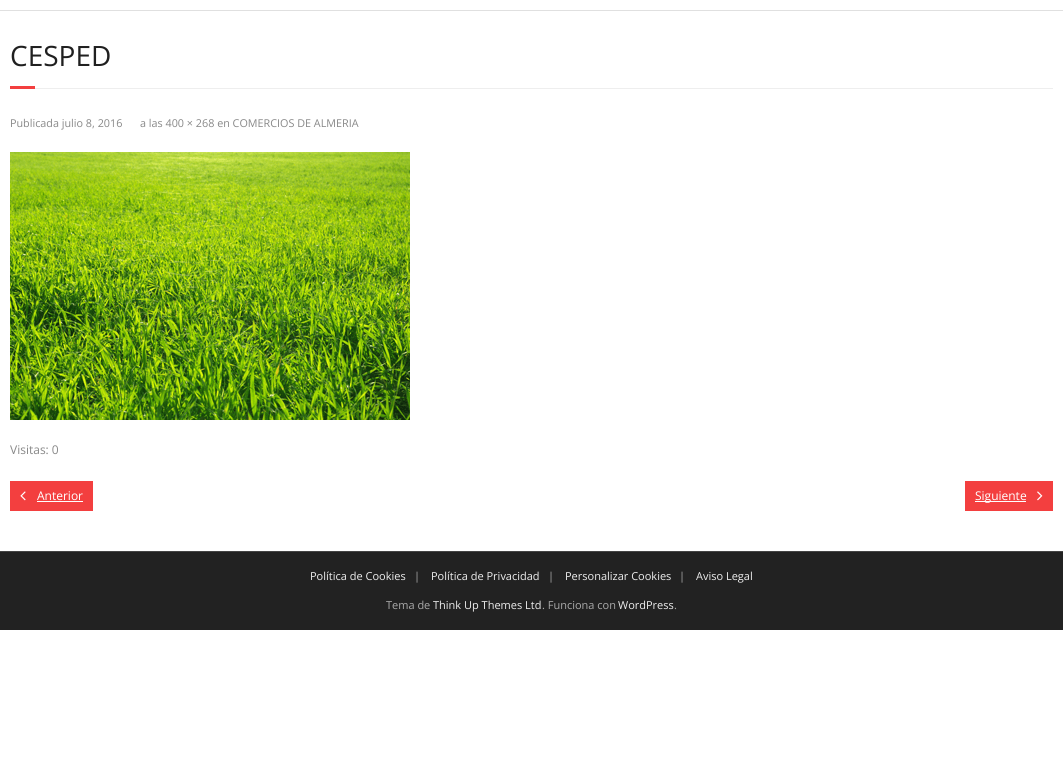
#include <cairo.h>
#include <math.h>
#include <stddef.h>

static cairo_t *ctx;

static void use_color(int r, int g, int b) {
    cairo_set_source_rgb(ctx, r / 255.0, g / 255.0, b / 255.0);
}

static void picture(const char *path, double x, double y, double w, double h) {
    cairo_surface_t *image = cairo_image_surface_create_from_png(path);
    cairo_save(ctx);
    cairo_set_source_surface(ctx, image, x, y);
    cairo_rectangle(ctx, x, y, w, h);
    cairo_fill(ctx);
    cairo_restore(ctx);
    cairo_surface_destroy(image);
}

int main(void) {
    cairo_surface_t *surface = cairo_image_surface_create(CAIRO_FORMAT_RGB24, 1063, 778);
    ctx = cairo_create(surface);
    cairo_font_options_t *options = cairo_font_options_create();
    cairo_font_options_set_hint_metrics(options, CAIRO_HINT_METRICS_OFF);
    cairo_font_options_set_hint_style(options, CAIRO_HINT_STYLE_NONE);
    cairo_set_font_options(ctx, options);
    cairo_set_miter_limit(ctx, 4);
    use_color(255, 255, 255);
    cairo_paint(ctx);
    use_color(224, 224, 224);
    cairo_rectangle(ctx, 0, 10, 1063, 1);
    cairo_fill(ctx);
    cairo_select_font_face(ctx, "Open Sans", CAIRO_FONT_SLANT_NORMAL, CAIRO_FONT_WEIGHT_NORMAL);
    cairo_set_font_size(ctx, 28);
    use_color(32, 32, 32);
    cairo_move_to(ctx, 10, 66);
    cairo_show_text(ctx, "CESPED");
    use_color(243, 63, 63);
    cairo_rectangle(ctx, 10, 86, 25, 3);
    cairo_fill(ctx);
    use_color(238, 238, 238);
    cairo_rectangle(ctx, 35, 88, 1018, 1);
    cairo_fill(ctx);
    cairo_set_font_size(ctx, 10.8);
    use_color(136, 136, 136);
    cairo_move_to(ctx, 10, 127);
    cairo_show_text(ctx, "Publicada julio 8, 2016");
    cairo_move_to(ctx, 140, 127);
    cairo_show_text(ctx, "a las 400 × 268 en COMERCIOS DE ALMERIA");
    picture("img1.png", 10, 152, 400, 268);
    cairo_set_font_size(ctx, 12);
    cairo_move_to(ctx, 10, 454);
    cairo_show_text(ctx, "Visitas: 0");
    use_color(243, 63, 63);
    cairo_rectangle(ctx, 10, 481, 83, 30);
    cairo_fill(ctx);
    picture("img2.png", 20, 491, 6, 10);
    use_color(255, 255, 255);
    cairo_move_to(ctx, 37, 500);
    cairo_show_text(ctx, "Anterior");
    cairo_rectangle(ctx, 37, 501, 46, 1);
    cairo_fill(ctx);
    use_color(243, 63, 63);
    cairo_rectangle(ctx, 965, 481, 88, 30);
    cairo_fill(ctx);
    use_color(255, 255, 255);
    cairo_rectangle(ctx, 975, 501, 51, 1);
    cairo_fill(ctx);
    cairo_move_to(ctx, 975, 500);
    cairo_show_text(ctx, "Siguiente");
    picture("img3.png", 1037, 491, 6, 10);
    use_color(34, 34, 34);
    cairo_rectangle(ctx, 0, 552, 1063, 78);
    cairo_fill(ctx);
    use_color(68, 68, 68);
    cairo_rectangle(ctx, 0, 551, 1063, 1);
    cairo_fill(ctx);
    cairo_set_font_size(ctx, 11);
    use_color(238, 238, 238);
    cairo_move_to(ctx, 310, 580);
    cairo_show_text(ctx, "Política de Cookies");
    use_color(170, 170, 170);
    cairo_move_to(ctx, 414, 580);
    cairo_show_text(ctx, "|");
    use_color(238, 238, 238);
    cairo_move_to(ctx, 431, 580);
    cairo_show_text(ctx, "Política de Privacidad");
    use_color(170, 170, 170);
    cairo_move_to(ctx, 548, 580);
    cairo_show_text(ctx, "|");
    use_color(238, 238, 238);
    cairo_move_to(ctx, 565, 580);
    cairo_show_text(ctx, "Personalizar Cookies");
    use_color(170, 170, 170);
    cairo_move_to(ctx, 679, 580);
    cairo_show_text(ctx, "|");
    use_color(238, 238, 238);
    cairo_move_to(ctx, 696, 580);
    cairo_show_text(ctx, "Aviso Legal");
    use_color(170, 170, 170);
    cairo_move_to(ctx, 386, 609);
    cairo_show_text(ctx, "Tema de");
    use_color(238, 238, 238);
    cairo_move_to(ctx, 433, 609);
    cairo_show_text(ctx, "Think Up Themes Ltd");
    use_color(170, 170, 170);
    cairo_move_to(ctx, 542, 609);
    cairo_show_text(ctx, ". Funciona con");
    use_color(238, 238, 238);
    cairo_move_to(ctx, 618, 609);
    cairo_show_text(ctx, "WordPress");
    use_color(170, 170, 170);
    cairo_move_to(ctx, 674, 609);
    cairo_show_text(ctx, ".");
    cairo_surface_write_to_png(surface, "result.png");
    cairo_font_options_destroy(options);
    cairo_destroy(ctx);
    cairo_surface_destroy(surface);
    return 0;
}
